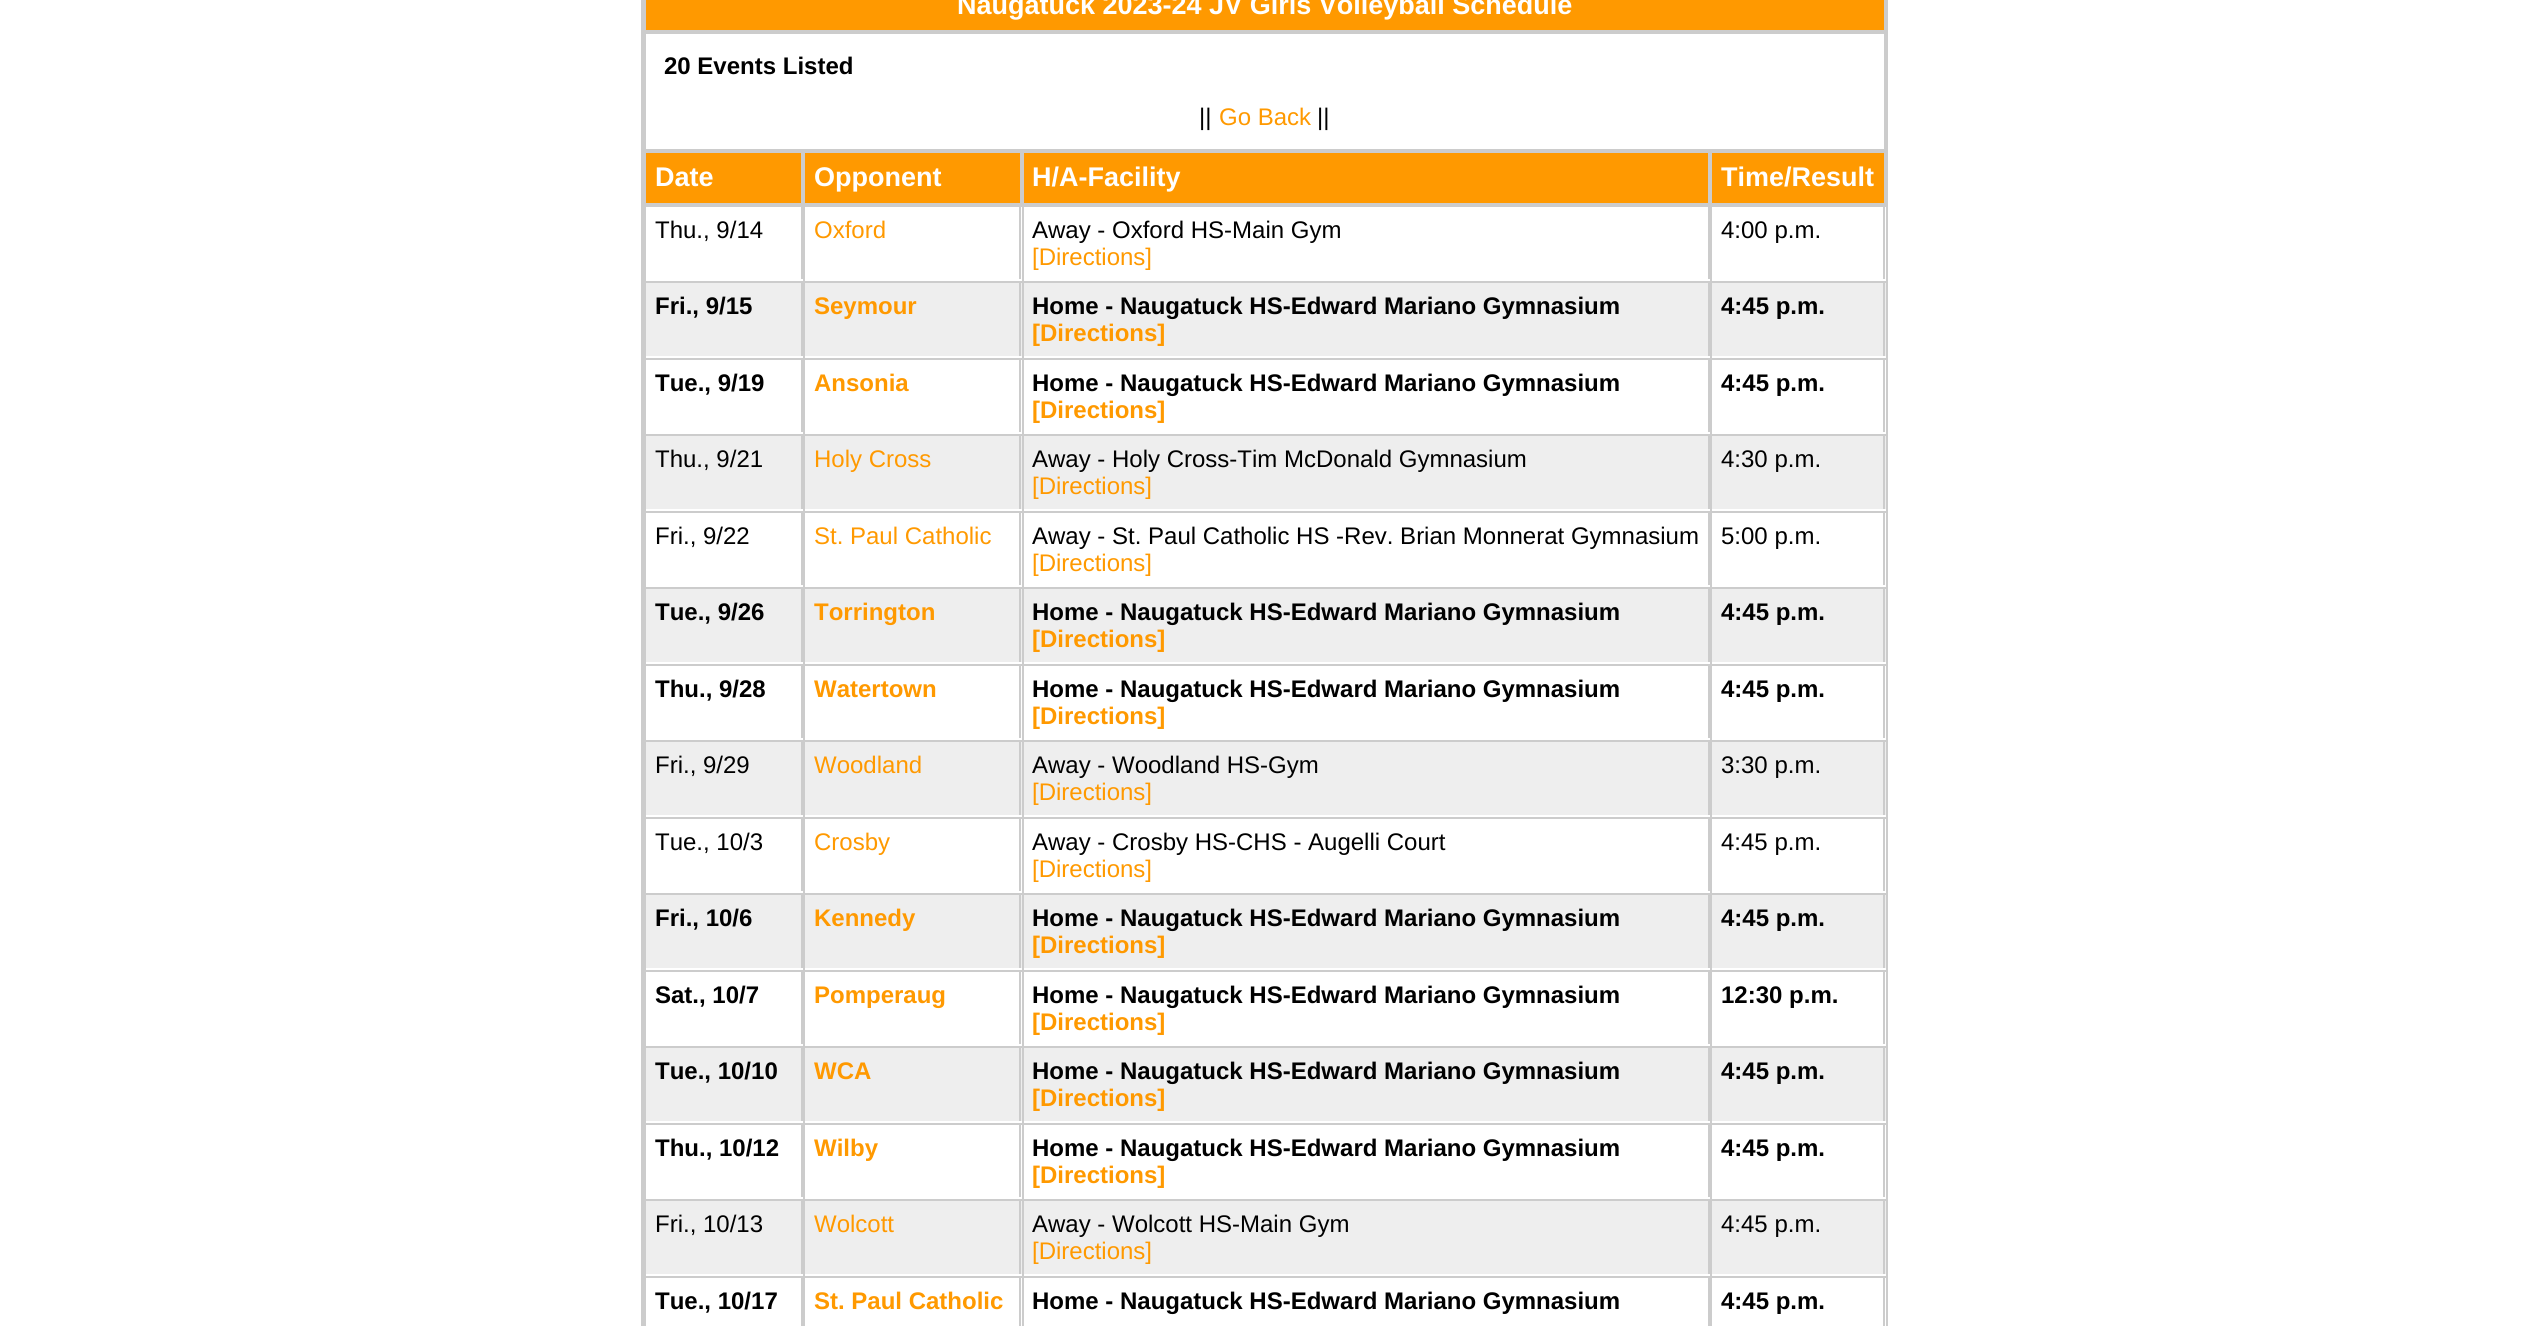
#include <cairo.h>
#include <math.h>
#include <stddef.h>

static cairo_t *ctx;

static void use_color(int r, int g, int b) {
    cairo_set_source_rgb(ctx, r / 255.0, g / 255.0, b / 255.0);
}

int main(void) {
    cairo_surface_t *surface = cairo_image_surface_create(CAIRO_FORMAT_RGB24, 2527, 1326);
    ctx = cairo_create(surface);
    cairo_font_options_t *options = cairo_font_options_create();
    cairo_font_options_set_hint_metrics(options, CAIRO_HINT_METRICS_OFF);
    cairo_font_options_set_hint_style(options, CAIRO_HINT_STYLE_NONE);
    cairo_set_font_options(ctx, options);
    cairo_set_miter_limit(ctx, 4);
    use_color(255, 255, 255);
    cairo_paint(ctx);
    use_color(204, 204, 204);
    cairo_rectangle(ctx, 641, 0, 1247, 1326);
    cairo_fill(ctx);
    use_color(255, 153, 0);
    cairo_rectangle(ctx, 646, 0, 1238, 30);
    cairo_fill(ctx);
    cairo_select_font_face(ctx, "Liberation Sans", CAIRO_FONT_SLANT_NORMAL, CAIRO_FONT_WEIGHT_BOLD);
    cairo_set_font_size(ctx, 27);
    use_color(255, 255, 255);
    cairo_move_to(ctx, 957, 14);
    cairo_show_text(ctx, "Naugatuck 2023-24 JV Girls Volleyball Schedule");
    cairo_rectangle(ctx, 646, 34, 1238, 115);
    cairo_fill(ctx);
    cairo_set_font_size(ctx, 24);
    use_color(0, 0, 0);
    cairo_move_to(ctx, 664, 74);
    cairo_show_text(ctx, "20 Events Listed");
    cairo_select_font_face(ctx, "Liberation Sans", CAIRO_FONT_SLANT_NORMAL, CAIRO_FONT_WEIGHT_NORMAL);
    cairo_move_to(ctx, 1199, 125);
    cairo_show_text(ctx, "||");
    use_color(255, 153, 0);
    cairo_move_to(ctx, 1219, 125);
    cairo_show_text(ctx, "Go Back");
    use_color(0, 0, 0);
    cairo_move_to(ctx, 1317, 125);
    cairo_show_text(ctx, "||");
    use_color(255, 153, 0);
    cairo_rectangle(ctx, 646, 153, 155, 50);
    cairo_fill(ctx);
    cairo_select_font_face(ctx, "Liberation Sans", CAIRO_FONT_SLANT_NORMAL, CAIRO_FONT_WEIGHT_BOLD);
    cairo_set_font_size(ctx, 27);
    use_color(255, 255, 255);
    cairo_move_to(ctx, 655, 186);
    cairo_show_text(ctx, "Date");
    use_color(255, 153, 0);
    cairo_rectangle(ctx, 805, 153, 215, 50);
    cairo_fill(ctx);
    use_color(255, 255, 255);
    cairo_move_to(ctx, 814, 186);
    cairo_show_text(ctx, "Opponent");
    use_color(255, 153, 0);
    cairo_rectangle(ctx, 1024, 153, 684, 50);
    cairo_fill(ctx);
    use_color(255, 255, 255);
    cairo_move_to(ctx, 1032, 186);
    cairo_show_text(ctx, "H/A-Facility");
    use_color(255, 153, 0);
    cairo_rectangle(ctx, 1712, 153, 172, 50);
    cairo_fill(ctx);
    use_color(255, 255, 255);
    cairo_move_to(ctx, 1721, 186);
    cairo_show_text(ctx, "Time/Result");
    cairo_rectangle(ctx, 646, 207, 1240, 72);
    cairo_fill(ctx);
    use_color(204, 204, 204);
    cairo_rectangle(ctx, 801, 205, 2, 76);
    cairo_fill(ctx);
    use_color(255, 255, 255);
    cairo_rectangle(ctx, 644, 279, 159, 2);
    cairo_fill(ctx);
    use_color(204, 204, 204);
    cairo_rectangle(ctx, 644, 279, 2, 2);
    cairo_fill(ctx);
    cairo_select_font_face(ctx, "Liberation Sans", CAIRO_FONT_SLANT_NORMAL, CAIRO_FONT_WEIGHT_NORMAL);
    cairo_set_font_size(ctx, 24);
    use_color(0, 0, 0);
    cairo_move_to(ctx, 655, 238);
    cairo_show_text(ctx, "Thu., 9/14");
    use_color(204, 204, 204);
    cairo_rectangle(ctx, 1019, 205, 2, 76);
    cairo_fill(ctx);
    use_color(255, 255, 255);
    cairo_rectangle(ctx, 803, 279, 219, 2);
    cairo_fill(ctx);
    use_color(204, 204, 204);
    cairo_rectangle(ctx, 803, 205, 2, 76);
    cairo_fill(ctx);
    use_color(255, 153, 0);
    cairo_move_to(ctx, 814, 238);
    cairo_show_text(ctx, "Oxford");
    use_color(204, 204, 204);
    cairo_rectangle(ctx, 1708, 205, 2, 76);
    cairo_fill(ctx);
    use_color(255, 255, 255);
    cairo_rectangle(ctx, 1022, 279, 688, 2);
    cairo_fill(ctx);
    use_color(204, 204, 204);
    cairo_rectangle(ctx, 1022, 205, 2, 76);
    cairo_fill(ctx);
    use_color(0, 0, 0);
    cairo_move_to(ctx, 1032, 238);
    cairo_show_text(ctx, "Away - Oxford HS-Main Gym");
    use_color(255, 153, 0);
    cairo_move_to(ctx, 1032, 265);
    cairo_show_text(ctx, "[Directions]");
    use_color(204, 204, 204);
    cairo_rectangle(ctx, 1883, 205, 2, 76);
    cairo_fill(ctx);
    use_color(255, 255, 255);
    cairo_rectangle(ctx, 1710, 279, 176, 2);
    cairo_fill(ctx);
    use_color(204, 204, 204);
    cairo_rectangle(ctx, 1710, 205, 2, 76);
    cairo_fill(ctx);
    use_color(0, 0, 0);
    cairo_move_to(ctx, 1721, 238);
    cairo_show_text(ctx, "4:00 p.m.");
    use_color(238, 238, 238);
    cairo_rectangle(ctx, 646, 283, 1240, 73);
    cairo_fill(ctx);
    use_color(204, 204, 204);
    cairo_rectangle(ctx, 801, 281, 2, 77);
    cairo_fill(ctx);
    use_color(255, 255, 255);
    cairo_rectangle(ctx, 644, 356, 159, 2);
    cairo_fill(ctx);
    use_color(204, 204, 204);
    cairo_rectangle(ctx, 644, 356, 2, 2);
    cairo_fill(ctx);
    cairo_select_font_face(ctx, "Liberation Sans", CAIRO_FONT_SLANT_NORMAL, CAIRO_FONT_WEIGHT_BOLD);
    use_color(0, 0, 0);
    cairo_move_to(ctx, 655, 314);
    cairo_show_text(ctx, "Fri., 9/15");
    use_color(204, 204, 204);
    cairo_rectangle(ctx, 1019, 281, 2, 77);
    cairo_fill(ctx);
    use_color(255, 255, 255);
    cairo_rectangle(ctx, 803, 356, 219, 2);
    cairo_fill(ctx);
    use_color(204, 204, 204);
    cairo_rectangle(ctx, 803, 281, 2, 77);
    cairo_fill(ctx);
    use_color(255, 153, 0);
    cairo_move_to(ctx, 814, 314);
    cairo_show_text(ctx, "Seymour");
    use_color(204, 204, 204);
    cairo_rectangle(ctx, 1708, 281, 2, 77);
    cairo_fill(ctx);
    use_color(255, 255, 255);
    cairo_rectangle(ctx, 1022, 356, 688, 2);
    cairo_fill(ctx);
    use_color(204, 204, 204);
    cairo_rectangle(ctx, 1022, 281, 2, 77);
    cairo_fill(ctx);
    use_color(0, 0, 0);
    cairo_move_to(ctx, 1032, 314);
    cairo_show_text(ctx, "Home - Naugatuck HS-Edward Mariano Gymnasium");
    use_color(255, 153, 0);
    cairo_move_to(ctx, 1032, 341);
    cairo_show_text(ctx, "[Directions]");
    use_color(204, 204, 204);
    cairo_rectangle(ctx, 1883, 281, 2, 77);
    cairo_fill(ctx);
    use_color(255, 255, 255);
    cairo_rectangle(ctx, 1710, 356, 176, 2);
    cairo_fill(ctx);
    use_color(204, 204, 204);
    cairo_rectangle(ctx, 1710, 281, 2, 77);
    cairo_fill(ctx);
    use_color(0, 0, 0);
    cairo_move_to(ctx, 1721, 314);
    cairo_show_text(ctx, "4:45 p.m.");
    use_color(255, 255, 255);
    cairo_rectangle(ctx, 646, 360, 1240, 72);
    cairo_fill(ctx);
    use_color(204, 204, 204);
    cairo_rectangle(ctx, 801, 358, 2, 76);
    cairo_fill(ctx);
    use_color(255, 255, 255);
    cairo_rectangle(ctx, 644, 432, 159, 2);
    cairo_fill(ctx);
    use_color(204, 204, 204);
    cairo_rectangle(ctx, 644, 432, 2, 2);
    cairo_fill(ctx);
    use_color(0, 0, 0);
    cairo_move_to(ctx, 655, 391);
    cairo_show_text(ctx, "Tue., 9/19");
    use_color(204, 204, 204);
    cairo_rectangle(ctx, 1019, 358, 2, 76);
    cairo_fill(ctx);
    use_color(255, 255, 255);
    cairo_rectangle(ctx, 803, 432, 219, 2);
    cairo_fill(ctx);
    use_color(204, 204, 204);
    cairo_rectangle(ctx, 803, 358, 2, 76);
    cairo_fill(ctx);
    use_color(255, 153, 0);
    cairo_move_to(ctx, 814, 391);
    cairo_show_text(ctx, "Ansonia");
    use_color(204, 204, 204);
    cairo_rectangle(ctx, 1708, 358, 2, 76);
    cairo_fill(ctx);
    use_color(255, 255, 255);
    cairo_rectangle(ctx, 1022, 432, 688, 2);
    cairo_fill(ctx);
    use_color(204, 204, 204);
    cairo_rectangle(ctx, 1022, 358, 2, 76);
    cairo_fill(ctx);
    use_color(0, 0, 0);
    cairo_move_to(ctx, 1032, 391);
    cairo_show_text(ctx, "Home - Naugatuck HS-Edward Mariano Gymnasium");
    use_color(255, 153, 0);
    cairo_move_to(ctx, 1032, 418);
    cairo_show_text(ctx, "[Directions]");
    use_color(204, 204, 204);
    cairo_rectangle(ctx, 1883, 358, 2, 76);
    cairo_fill(ctx);
    use_color(255, 255, 255);
    cairo_rectangle(ctx, 1710, 432, 176, 2);
    cairo_fill(ctx);
    use_color(204, 204, 204);
    cairo_rectangle(ctx, 1710, 358, 2, 76);
    cairo_fill(ctx);
    use_color(0, 0, 0);
    cairo_move_to(ctx, 1721, 391);
    cairo_show_text(ctx, "4:45 p.m.");
    use_color(238, 238, 238);
    cairo_rectangle(ctx, 646, 436, 1240, 73);
    cairo_fill(ctx);
    use_color(204, 204, 204);
    cairo_rectangle(ctx, 801, 434, 2, 77);
    cairo_fill(ctx);
    use_color(255, 255, 255);
    cairo_rectangle(ctx, 644, 509, 159, 2);
    cairo_fill(ctx);
    use_color(204, 204, 204);
    cairo_rectangle(ctx, 644, 509, 2, 2);
    cairo_fill(ctx);
    cairo_select_font_face(ctx, "Liberation Sans", CAIRO_FONT_SLANT_NORMAL, CAIRO_FONT_WEIGHT_NORMAL);
    use_color(0, 0, 0);
    cairo_move_to(ctx, 655, 467);
    cairo_show_text(ctx, "Thu., 9/21");
    use_color(204, 204, 204);
    cairo_rectangle(ctx, 1019, 434, 2, 77);
    cairo_fill(ctx);
    use_color(255, 255, 255);
    cairo_rectangle(ctx, 803, 509, 219, 2);
    cairo_fill(ctx);
    use_color(204, 204, 204);
    cairo_rectangle(ctx, 803, 434, 2, 77);
    cairo_fill(ctx);
    use_color(255, 153, 0);
    cairo_move_to(ctx, 814, 467);
    cairo_show_text(ctx, "Holy Cross");
    use_color(204, 204, 204);
    cairo_rectangle(ctx, 1708, 434, 2, 77);
    cairo_fill(ctx);
    use_color(255, 255, 255);
    cairo_rectangle(ctx, 1022, 509, 688, 2);
    cairo_fill(ctx);
    use_color(204, 204, 204);
    cairo_rectangle(ctx, 1022, 434, 2, 77);
    cairo_fill(ctx);
    use_color(0, 0, 0);
    cairo_move_to(ctx, 1032, 467);
    cairo_show_text(ctx, "Away - Holy Cross-Tim McDonald Gymnasium");
    use_color(255, 153, 0);
    cairo_move_to(ctx, 1032, 494);
    cairo_show_text(ctx, "[Directions]");
    use_color(204, 204, 204);
    cairo_rectangle(ctx, 1883, 434, 2, 77);
    cairo_fill(ctx);
    use_color(255, 255, 255);
    cairo_rectangle(ctx, 1710, 509, 176, 2);
    cairo_fill(ctx);
    use_color(204, 204, 204);
    cairo_rectangle(ctx, 1710, 434, 2, 77);
    cairo_fill(ctx);
    use_color(0, 0, 0);
    cairo_move_to(ctx, 1721, 467);
    cairo_show_text(ctx, "4:30 p.m.");
    use_color(255, 255, 255);
    cairo_rectangle(ctx, 646, 513, 1240, 72);
    cairo_fill(ctx);
    use_color(204, 204, 204);
    cairo_rectangle(ctx, 801, 511, 2, 76);
    cairo_fill(ctx);
    use_color(255, 255, 255);
    cairo_rectangle(ctx, 644, 585, 159, 2);
    cairo_fill(ctx);
    use_color(204, 204, 204);
    cairo_rectangle(ctx, 644, 585, 2, 2);
    cairo_fill(ctx);
    use_color(0, 0, 0);
    cairo_move_to(ctx, 655, 544);
    cairo_show_text(ctx, "Fri., 9/22");
    use_color(204, 204, 204);
    cairo_rectangle(ctx, 1019, 511, 2, 76);
    cairo_fill(ctx);
    use_color(255, 255, 255);
    cairo_rectangle(ctx, 803, 585, 219, 2);
    cairo_fill(ctx);
    use_color(204, 204, 204);
    cairo_rectangle(ctx, 803, 511, 2, 76);
    cairo_fill(ctx);
    use_color(255, 153, 0);
    cairo_move_to(ctx, 814, 544);
    cairo_show_text(ctx, "St. Paul Catholic");
    use_color(204, 204, 204);
    cairo_rectangle(ctx, 1708, 511, 2, 76);
    cairo_fill(ctx);
    use_color(255, 255, 255);
    cairo_rectangle(ctx, 1022, 585, 688, 2);
    cairo_fill(ctx);
    use_color(204, 204, 204);
    cairo_rectangle(ctx, 1022, 511, 2, 76);
    cairo_fill(ctx);
    use_color(0, 0, 0);
    cairo_move_to(ctx, 1032, 544);
    cairo_show_text(ctx, "Away - St. Paul Catholic HS -Rev. Brian Monnerat Gymnasium");
    use_color(255, 153, 0);
    cairo_move_to(ctx, 1032, 571);
    cairo_show_text(ctx, "[Directions]");
    use_color(204, 204, 204);
    cairo_rectangle(ctx, 1883, 511, 2, 76);
    cairo_fill(ctx);
    use_color(255, 255, 255);
    cairo_rectangle(ctx, 1710, 585, 176, 2);
    cairo_fill(ctx);
    use_color(204, 204, 204);
    cairo_rectangle(ctx, 1710, 511, 2, 76);
    cairo_fill(ctx);
    use_color(0, 0, 0);
    cairo_move_to(ctx, 1721, 544);
    cairo_show_text(ctx, "5:00 p.m.");
    use_color(238, 238, 238);
    cairo_rectangle(ctx, 646, 589, 1240, 73);
    cairo_fill(ctx);
    use_color(204, 204, 204);
    cairo_rectangle(ctx, 801, 587, 2, 77);
    cairo_fill(ctx);
    use_color(255, 255, 255);
    cairo_rectangle(ctx, 644, 662, 159, 2);
    cairo_fill(ctx);
    use_color(204, 204, 204);
    cairo_rectangle(ctx, 644, 662, 2, 2);
    cairo_fill(ctx);
    cairo_select_font_face(ctx, "Liberation Sans", CAIRO_FONT_SLANT_NORMAL, CAIRO_FONT_WEIGHT_BOLD);
    use_color(0, 0, 0);
    cairo_move_to(ctx, 655, 620);
    cairo_show_text(ctx, "Tue., 9/26");
    use_color(204, 204, 204);
    cairo_rectangle(ctx, 1019, 587, 2, 77);
    cairo_fill(ctx);
    use_color(255, 255, 255);
    cairo_rectangle(ctx, 803, 662, 219, 2);
    cairo_fill(ctx);
    use_color(204, 204, 204);
    cairo_rectangle(ctx, 803, 587, 2, 77);
    cairo_fill(ctx);
    use_color(255, 153, 0);
    cairo_move_to(ctx, 814, 620);
    cairo_show_text(ctx, "Torrington");
    use_color(204, 204, 204);
    cairo_rectangle(ctx, 1708, 587, 2, 77);
    cairo_fill(ctx);
    use_color(255, 255, 255);
    cairo_rectangle(ctx, 1022, 662, 688, 2);
    cairo_fill(ctx);
    use_color(204, 204, 204);
    cairo_rectangle(ctx, 1022, 587, 2, 77);
    cairo_fill(ctx);
    use_color(0, 0, 0);
    cairo_move_to(ctx, 1032, 620);
    cairo_show_text(ctx, "Home - Naugatuck HS-Edward Mariano Gymnasium");
    use_color(255, 153, 0);
    cairo_move_to(ctx, 1032, 647);
    cairo_show_text(ctx, "[Directions]");
    use_color(204, 204, 204);
    cairo_rectangle(ctx, 1883, 587, 2, 77);
    cairo_fill(ctx);
    use_color(255, 255, 255);
    cairo_rectangle(ctx, 1710, 662, 176, 2);
    cairo_fill(ctx);
    use_color(204, 204, 204);
    cairo_rectangle(ctx, 1710, 587, 2, 77);
    cairo_fill(ctx);
    use_color(0, 0, 0);
    cairo_move_to(ctx, 1721, 620);
    cairo_show_text(ctx, "4:45 p.m.");
    use_color(255, 255, 255);
    cairo_rectangle(ctx, 646, 666, 1240, 72);
    cairo_fill(ctx);
    use_color(204, 204, 204);
    cairo_rectangle(ctx, 801, 664, 2, 76);
    cairo_fill(ctx);
    use_color(255, 255, 255);
    cairo_rectangle(ctx, 644, 738, 159, 2);
    cairo_fill(ctx);
    use_color(204, 204, 204);
    cairo_rectangle(ctx, 644, 738, 2, 2);
    cairo_fill(ctx);
    use_color(0, 0, 0);
    cairo_move_to(ctx, 655, 697);
    cairo_show_text(ctx, "Thu., 9/28");
    use_color(204, 204, 204);
    cairo_rectangle(ctx, 1019, 664, 2, 76);
    cairo_fill(ctx);
    use_color(255, 255, 255);
    cairo_rectangle(ctx, 803, 738, 219, 2);
    cairo_fill(ctx);
    use_color(204, 204, 204);
    cairo_rectangle(ctx, 803, 664, 2, 76);
    cairo_fill(ctx);
    use_color(255, 153, 0);
    cairo_move_to(ctx, 814, 697);
    cairo_show_text(ctx, "Watertown");
    use_color(204, 204, 204);
    cairo_rectangle(ctx, 1708, 664, 2, 76);
    cairo_fill(ctx);
    use_color(255, 255, 255);
    cairo_rectangle(ctx, 1022, 738, 688, 2);
    cairo_fill(ctx);
    use_color(204, 204, 204);
    cairo_rectangle(ctx, 1022, 664, 2, 76);
    cairo_fill(ctx);
    use_color(0, 0, 0);
    cairo_move_to(ctx, 1032, 697);
    cairo_show_text(ctx, "Home - Naugatuck HS-Edward Mariano Gymnasium");
    use_color(255, 153, 0);
    cairo_move_to(ctx, 1032, 724);
    cairo_show_text(ctx, "[Directions]");
    use_color(204, 204, 204);
    cairo_rectangle(ctx, 1883, 664, 2, 76);
    cairo_fill(ctx);
    use_color(255, 255, 255);
    cairo_rectangle(ctx, 1710, 738, 176, 2);
    cairo_fill(ctx);
    use_color(204, 204, 204);
    cairo_rectangle(ctx, 1710, 664, 2, 76);
    cairo_fill(ctx);
    use_color(0, 0, 0);
    cairo_move_to(ctx, 1721, 697);
    cairo_show_text(ctx, "4:45 p.m.");
    use_color(238, 238, 238);
    cairo_rectangle(ctx, 646, 742, 1240, 73);
    cairo_fill(ctx);
    use_color(204, 204, 204);
    cairo_rectangle(ctx, 801, 740, 2, 77);
    cairo_fill(ctx);
    use_color(255, 255, 255);
    cairo_rectangle(ctx, 644, 815, 159, 2);
    cairo_fill(ctx);
    use_color(204, 204, 204);
    cairo_rectangle(ctx, 644, 815, 2, 2);
    cairo_fill(ctx);
    cairo_select_font_face(ctx, "Liberation Sans", CAIRO_FONT_SLANT_NORMAL, CAIRO_FONT_WEIGHT_NORMAL);
    use_color(0, 0, 0);
    cairo_move_to(ctx, 655, 773);
    cairo_show_text(ctx, "Fri., 9/29");
    use_color(204, 204, 204);
    cairo_rectangle(ctx, 1019, 740, 2, 77);
    cairo_fill(ctx);
    use_color(255, 255, 255);
    cairo_rectangle(ctx, 803, 815, 219, 2);
    cairo_fill(ctx);
    use_color(204, 204, 204);
    cairo_rectangle(ctx, 803, 740, 2, 77);
    cairo_fill(ctx);
    use_color(255, 153, 0);
    cairo_move_to(ctx, 814, 773);
    cairo_show_text(ctx, "Woodland");
    use_color(204, 204, 204);
    cairo_rectangle(ctx, 1708, 740, 2, 77);
    cairo_fill(ctx);
    use_color(255, 255, 255);
    cairo_rectangle(ctx, 1022, 815, 688, 2);
    cairo_fill(ctx);
    use_color(204, 204, 204);
    cairo_rectangle(ctx, 1022, 740, 2, 77);
    cairo_fill(ctx);
    use_color(0, 0, 0);
    cairo_move_to(ctx, 1032, 773);
    cairo_show_text(ctx, "Away - Woodland HS-Gym");
    use_color(255, 153, 0);
    cairo_move_to(ctx, 1032, 800);
    cairo_show_text(ctx, "[Directions]");
    use_color(204, 204, 204);
    cairo_rectangle(ctx, 1883, 740, 2, 77);
    cairo_fill(ctx);
    use_color(255, 255, 255);
    cairo_rectangle(ctx, 1710, 815, 176, 2);
    cairo_fill(ctx);
    use_color(204, 204, 204);
    cairo_rectangle(ctx, 1710, 740, 2, 77);
    cairo_fill(ctx);
    use_color(0, 0, 0);
    cairo_move_to(ctx, 1721, 773);
    cairo_show_text(ctx, "3:30 p.m.");
    use_color(255, 255, 255);
    cairo_rectangle(ctx, 646, 819, 1240, 72);
    cairo_fill(ctx);
    use_color(204, 204, 204);
    cairo_rectangle(ctx, 801, 817, 2, 76);
    cairo_fill(ctx);
    use_color(255, 255, 255);
    cairo_rectangle(ctx, 644, 891, 159, 2);
    cairo_fill(ctx);
    use_color(204, 204, 204);
    cairo_rectangle(ctx, 644, 891, 2, 2);
    cairo_fill(ctx);
    use_color(0, 0, 0);
    cairo_move_to(ctx, 655, 850);
    cairo_show_text(ctx, "Tue., 10/3");
    use_color(204, 204, 204);
    cairo_rectangle(ctx, 1019, 817, 2, 76);
    cairo_fill(ctx);
    use_color(255, 255, 255);
    cairo_rectangle(ctx, 803, 891, 219, 2);
    cairo_fill(ctx);
    use_color(204, 204, 204);
    cairo_rectangle(ctx, 803, 817, 2, 76);
    cairo_fill(ctx);
    use_color(255, 153, 0);
    cairo_move_to(ctx, 814, 850);
    cairo_show_text(ctx, "Crosby");
    use_color(204, 204, 204);
    cairo_rectangle(ctx, 1708, 817, 2, 76);
    cairo_fill(ctx);
    use_color(255, 255, 255);
    cairo_rectangle(ctx, 1022, 891, 688, 2);
    cairo_fill(ctx);
    use_color(204, 204, 204);
    cairo_rectangle(ctx, 1022, 817, 2, 76);
    cairo_fill(ctx);
    use_color(0, 0, 0);
    cairo_move_to(ctx, 1032, 850);
    cairo_show_text(ctx, "Away - Crosby HS-CHS - Augelli Court");
    use_color(255, 153, 0);
    cairo_move_to(ctx, 1032, 877);
    cairo_show_text(ctx, "[Directions]");
    use_color(204, 204, 204);
    cairo_rectangle(ctx, 1883, 817, 2, 76);
    cairo_fill(ctx);
    use_color(255, 255, 255);
    cairo_rectangle(ctx, 1710, 891, 176, 2);
    cairo_fill(ctx);
    use_color(204, 204, 204);
    cairo_rectangle(ctx, 1710, 817, 2, 76);
    cairo_fill(ctx);
    use_color(0, 0, 0);
    cairo_move_to(ctx, 1721, 850);
    cairo_show_text(ctx, "4:45 p.m.");
    use_color(238, 238, 238);
    cairo_rectangle(ctx, 646, 895, 1240, 73);
    cairo_fill(ctx);
    use_color(204, 204, 204);
    cairo_rectangle(ctx, 801, 893, 2, 77);
    cairo_fill(ctx);
    use_color(255, 255, 255);
    cairo_rectangle(ctx, 644, 968, 159, 2);
    cairo_fill(ctx);
    use_color(204, 204, 204);
    cairo_rectangle(ctx, 644, 968, 2, 2);
    cairo_fill(ctx);
    cairo_select_font_face(ctx, "Liberation Sans", CAIRO_FONT_SLANT_NORMAL, CAIRO_FONT_WEIGHT_BOLD);
    use_color(0, 0, 0);
    cairo_move_to(ctx, 655, 926);
    cairo_show_text(ctx, "Fri., 10/6");
    use_color(204, 204, 204);
    cairo_rectangle(ctx, 1019, 893, 2, 77);
    cairo_fill(ctx);
    use_color(255, 255, 255);
    cairo_rectangle(ctx, 803, 968, 219, 2);
    cairo_fill(ctx);
    use_color(204, 204, 204);
    cairo_rectangle(ctx, 803, 893, 2, 77);
    cairo_fill(ctx);
    use_color(255, 153, 0);
    cairo_move_to(ctx, 814, 926);
    cairo_show_text(ctx, "Kennedy");
    use_color(204, 204, 204);
    cairo_rectangle(ctx, 1708, 893, 2, 77);
    cairo_fill(ctx);
    use_color(255, 255, 255);
    cairo_rectangle(ctx, 1022, 968, 688, 2);
    cairo_fill(ctx);
    use_color(204, 204, 204);
    cairo_rectangle(ctx, 1022, 893, 2, 77);
    cairo_fill(ctx);
    use_color(0, 0, 0);
    cairo_move_to(ctx, 1032, 926);
    cairo_show_text(ctx, "Home - Naugatuck HS-Edward Mariano Gymnasium");
    use_color(255, 153, 0);
    cairo_move_to(ctx, 1032, 953);
    cairo_show_text(ctx, "[Directions]");
    use_color(204, 204, 204);
    cairo_rectangle(ctx, 1883, 893, 2, 77);
    cairo_fill(ctx);
    use_color(255, 255, 255);
    cairo_rectangle(ctx, 1710, 968, 176, 2);
    cairo_fill(ctx);
    use_color(204, 204, 204);
    cairo_rectangle(ctx, 1710, 893, 2, 77);
    cairo_fill(ctx);
    use_color(0, 0, 0);
    cairo_move_to(ctx, 1721, 926);
    cairo_show_text(ctx, "4:45 p.m.");
    use_color(255, 255, 255);
    cairo_rectangle(ctx, 646, 972, 1240, 72);
    cairo_fill(ctx);
    use_color(204, 204, 204);
    cairo_rectangle(ctx, 801, 970, 2, 76);
    cairo_fill(ctx);
    use_color(255, 255, 255);
    cairo_rectangle(ctx, 644, 1044, 159, 2);
    cairo_fill(ctx);
    use_color(204, 204, 204);
    cairo_rectangle(ctx, 644, 1044, 2, 2);
    cairo_fill(ctx);
    use_color(0, 0, 0);
    cairo_move_to(ctx, 655, 1003);
    cairo_show_text(ctx, "Sat., 10/7");
    use_color(204, 204, 204);
    cairo_rectangle(ctx, 1019, 970, 2, 76);
    cairo_fill(ctx);
    use_color(255, 255, 255);
    cairo_rectangle(ctx, 803, 1044, 219, 2);
    cairo_fill(ctx);
    use_color(204, 204, 204);
    cairo_rectangle(ctx, 803, 970, 2, 76);
    cairo_fill(ctx);
    use_color(255, 153, 0);
    cairo_move_to(ctx, 814, 1003);
    cairo_show_text(ctx, "Pomperaug");
    use_color(204, 204, 204);
    cairo_rectangle(ctx, 1708, 970, 2, 76);
    cairo_fill(ctx);
    use_color(255, 255, 255);
    cairo_rectangle(ctx, 1022, 1044, 688, 2);
    cairo_fill(ctx);
    use_color(204, 204, 204);
    cairo_rectangle(ctx, 1022, 970, 2, 76);
    cairo_fill(ctx);
    use_color(0, 0, 0);
    cairo_move_to(ctx, 1032, 1003);
    cairo_show_text(ctx, "Home - Naugatuck HS-Edward Mariano Gymnasium");
    use_color(255, 153, 0);
    cairo_move_to(ctx, 1032, 1030);
    cairo_show_text(ctx, "[Directions]");
    use_color(204, 204, 204);
    cairo_rectangle(ctx, 1883, 970, 2, 76);
    cairo_fill(ctx);
    use_color(255, 255, 255);
    cairo_rectangle(ctx, 1710, 1044, 176, 2);
    cairo_fill(ctx);
    use_color(204, 204, 204);
    cairo_rectangle(ctx, 1710, 970, 2, 76);
    cairo_fill(ctx);
    use_color(0, 0, 0);
    cairo_move_to(ctx, 1721, 1003);
    cairo_show_text(ctx, "12:30 p.m.");
    use_color(238, 238, 238);
    cairo_rectangle(ctx, 646, 1048, 1240, 73);
    cairo_fill(ctx);
    use_color(204, 204, 204);
    cairo_rectangle(ctx, 801, 1046, 2, 77);
    cairo_fill(ctx);
    use_color(255, 255, 255);
    cairo_rectangle(ctx, 644, 1121, 159, 2);
    cairo_fill(ctx);
    use_color(204, 204, 204);
    cairo_rectangle(ctx, 644, 1121, 2, 2);
    cairo_fill(ctx);
    use_color(0, 0, 0);
    cairo_move_to(ctx, 655, 1079);
    cairo_show_text(ctx, "Tue., 10/10");
    use_color(204, 204, 204);
    cairo_rectangle(ctx, 1019, 1046, 2, 77);
    cairo_fill(ctx);
    use_color(255, 255, 255);
    cairo_rectangle(ctx, 803, 1121, 219, 2);
    cairo_fill(ctx);
    use_color(204, 204, 204);
    cairo_rectangle(ctx, 803, 1046, 2, 77);
    cairo_fill(ctx);
    use_color(255, 153, 0);
    cairo_move_to(ctx, 814, 1079);
    cairo_show_text(ctx, "WCA");
    use_color(204, 204, 204);
    cairo_rectangle(ctx, 1708, 1046, 2, 77);
    cairo_fill(ctx);
    use_color(255, 255, 255);
    cairo_rectangle(ctx, 1022, 1121, 688, 2);
    cairo_fill(ctx);
    use_color(204, 204, 204);
    cairo_rectangle(ctx, 1022, 1046, 2, 77);
    cairo_fill(ctx);
    use_color(0, 0, 0);
    cairo_move_to(ctx, 1032, 1079);
    cairo_show_text(ctx, "Home - Naugatuck HS-Edward Mariano Gymnasium");
    use_color(255, 153, 0);
    cairo_move_to(ctx, 1032, 1106);
    cairo_show_text(ctx, "[Directions]");
    use_color(204, 204, 204);
    cairo_rectangle(ctx, 1883, 1046, 2, 77);
    cairo_fill(ctx);
    use_color(255, 255, 255);
    cairo_rectangle(ctx, 1710, 1121, 176, 2);
    cairo_fill(ctx);
    use_color(204, 204, 204);
    cairo_rectangle(ctx, 1710, 1046, 2, 77);
    cairo_fill(ctx);
    use_color(0, 0, 0);
    cairo_move_to(ctx, 1721, 1079);
    cairo_show_text(ctx, "4:45 p.m.");
    use_color(255, 255, 255);
    cairo_rectangle(ctx, 646, 1125, 1240, 72);
    cairo_fill(ctx);
    use_color(204, 204, 204);
    cairo_rectangle(ctx, 801, 1123, 2, 76);
    cairo_fill(ctx);
    use_color(255, 255, 255);
    cairo_rectangle(ctx, 644, 1197, 159, 2);
    cairo_fill(ctx);
    use_color(204, 204, 204);
    cairo_rectangle(ctx, 644, 1197, 2, 2);
    cairo_fill(ctx);
    use_color(0, 0, 0);
    cairo_move_to(ctx, 655, 1156);
    cairo_show_text(ctx, "Thu., 10/12");
    use_color(204, 204, 204);
    cairo_rectangle(ctx, 1019, 1123, 2, 76);
    cairo_fill(ctx);
    use_color(255, 255, 255);
    cairo_rectangle(ctx, 803, 1197, 219, 2);
    cairo_fill(ctx);
    use_color(204, 204, 204);
    cairo_rectangle(ctx, 803, 1123, 2, 76);
    cairo_fill(ctx);
    use_color(255, 153, 0);
    cairo_move_to(ctx, 814, 1156);
    cairo_show_text(ctx, "Wilby");
    use_color(204, 204, 204);
    cairo_rectangle(ctx, 1708, 1123, 2, 76);
    cairo_fill(ctx);
    use_color(255, 255, 255);
    cairo_rectangle(ctx, 1022, 1197, 688, 2);
    cairo_fill(ctx);
    use_color(204, 204, 204);
    cairo_rectangle(ctx, 1022, 1123, 2, 76);
    cairo_fill(ctx);
    use_color(0, 0, 0);
    cairo_move_to(ctx, 1032, 1156);
    cairo_show_text(ctx, "Home - Naugatuck HS-Edward Mariano Gymnasium");
    use_color(255, 153, 0);
    cairo_move_to(ctx, 1032, 1183);
    cairo_show_text(ctx, "[Directions]");
    use_color(204, 204, 204);
    cairo_rectangle(ctx, 1883, 1123, 2, 76);
    cairo_fill(ctx);
    use_color(255, 255, 255);
    cairo_rectangle(ctx, 1710, 1197, 176, 2);
    cairo_fill(ctx);
    use_color(204, 204, 204);
    cairo_rectangle(ctx, 1710, 1123, 2, 76);
    cairo_fill(ctx);
    use_color(0, 0, 0);
    cairo_move_to(ctx, 1721, 1156);
    cairo_show_text(ctx, "4:45 p.m.");
    use_color(238, 238, 238);
    cairo_rectangle(ctx, 646, 1201, 1240, 73);
    cairo_fill(ctx);
    use_color(204, 204, 204);
    cairo_rectangle(ctx, 801, 1199, 2, 77);
    cairo_fill(ctx);
    use_color(255, 255, 255);
    cairo_rectangle(ctx, 644, 1274, 159, 2);
    cairo_fill(ctx);
    use_color(204, 204, 204);
    cairo_rectangle(ctx, 644, 1274, 2, 2);
    cairo_fill(ctx);
    cairo_select_font_face(ctx, "Liberation Sans", CAIRO_FONT_SLANT_NORMAL, CAIRO_FONT_WEIGHT_NORMAL);
    use_color(0, 0, 0);
    cairo_move_to(ctx, 655, 1232);
    cairo_show_text(ctx, "Fri., 10/13");
    use_color(204, 204, 204);
    cairo_rectangle(ctx, 1019, 1199, 2, 77);
    cairo_fill(ctx);
    use_color(255, 255, 255);
    cairo_rectangle(ctx, 803, 1274, 219, 2);
    cairo_fill(ctx);
    use_color(204, 204, 204);
    cairo_rectangle(ctx, 803, 1199, 2, 77);
    cairo_fill(ctx);
    use_color(255, 153, 0);
    cairo_move_to(ctx, 814, 1232);
    cairo_show_text(ctx, "Wolcott");
    use_color(204, 204, 204);
    cairo_rectangle(ctx, 1708, 1199, 2, 77);
    cairo_fill(ctx);
    use_color(255, 255, 255);
    cairo_rectangle(ctx, 1022, 1274, 688, 2);
    cairo_fill(ctx);
    use_color(204, 204, 204);
    cairo_rectangle(ctx, 1022, 1199, 2, 77);
    cairo_fill(ctx);
    use_color(0, 0, 0);
    cairo_move_to(ctx, 1032, 1232);
    cairo_show_text(ctx, "Away - Wolcott HS-Main Gym");
    use_color(255, 153, 0);
    cairo_move_to(ctx, 1032, 1259);
    cairo_show_text(ctx, "[Directions]");
    use_color(204, 204, 204);
    cairo_rectangle(ctx, 1883, 1199, 2, 77);
    cairo_fill(ctx);
    use_color(255, 255, 255);
    cairo_rectangle(ctx, 1710, 1274, 176, 2);
    cairo_fill(ctx);
    use_color(204, 204, 204);
    cairo_rectangle(ctx, 1710, 1199, 2, 77);
    cairo_fill(ctx);
    use_color(0, 0, 0);
    cairo_move_to(ctx, 1721, 1232);
    cairo_show_text(ctx, "4:45 p.m.");
    use_color(255, 255, 255);
    cairo_rectangle(ctx, 646, 1278, 1240, 48);
    cairo_fill(ctx);
    use_color(204, 204, 204);
    cairo_rectangle(ctx, 801, 1276, 4, 50);
    cairo_fill(ctx);
    cairo_select_font_face(ctx, "Liberation Sans", CAIRO_FONT_SLANT_NORMAL, CAIRO_FONT_WEIGHT_BOLD);
    use_color(0, 0, 0);
    cairo_move_to(ctx, 655, 1309);
    cairo_show_text(ctx, "Tue., 10/17");
    use_color(204, 204, 204);
    cairo_rectangle(ctx, 1019, 1276, 2, 50);
    cairo_fill(ctx);
    use_color(255, 153, 0);
    cairo_move_to(ctx, 814, 1309);
    cairo_show_text(ctx, "St. Paul Catholic");
    use_color(204, 204, 204);
    cairo_rectangle(ctx, 1708, 1276, 4, 50);
    cairo_fill(ctx);
    cairo_rectangle(ctx, 1022, 1276, 2, 50);
    cairo_fill(ctx);
    use_color(0, 0, 0);
    cairo_move_to(ctx, 1032, 1309);
    cairo_show_text(ctx, "Home - Naugatuck HS-Edward Mariano Gymnasium");
    use_color(204, 204, 204);
    cairo_rectangle(ctx, 1883, 1276, 2, 50);
    cairo_fill(ctx);
    use_color(0, 0, 0);
    cairo_move_to(ctx, 1721, 1309);
    cairo_show_text(ctx, "4:45 p.m.");
    cairo_surface_write_to_png(surface, "result.png");
    cairo_font_options_destroy(options);
    cairo_destroy(ctx);
    cairo_surface_destroy(surface);
    return 0;
}
